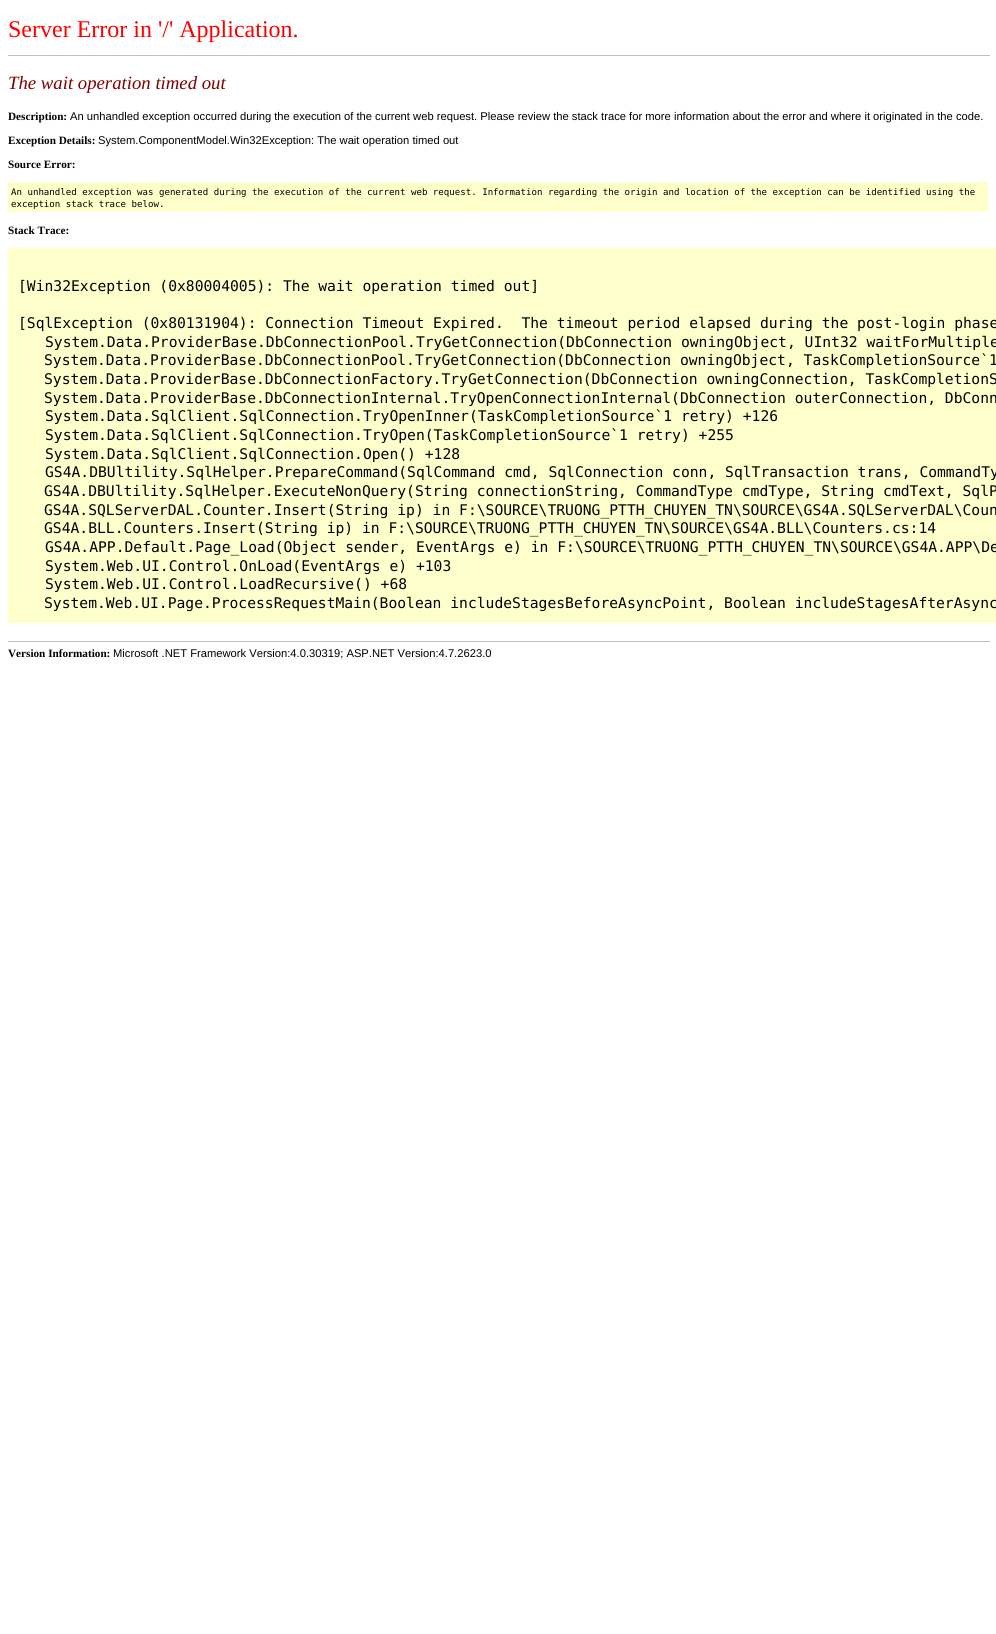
#include <cairo.h>
#include <math.h>
#include <stddef.h>

static cairo_t *ctx;

static void use_color(int r, int g, int b) {
    cairo_set_source_rgb(ctx, r / 255.0, g / 255.0, b / 255.0);
}

int main(void) {
    cairo_surface_t *surface = cairo_image_surface_create(CAIRO_FORMAT_RGB24, 996, 1634);
    ctx = cairo_create(surface);
    cairo_font_options_t *options = cairo_font_options_create();
    cairo_font_options_set_hint_metrics(options, CAIRO_HINT_METRICS_OFF);
    cairo_font_options_set_hint_style(options, CAIRO_HINT_STYLE_NONE);
    cairo_set_font_options(ctx, options);
    cairo_set_miter_limit(ctx, 4);
    use_color(255, 255, 255);
    cairo_paint(ctx);
    cairo_select_font_face(ctx, "Liberation Serif", CAIRO_FONT_SLANT_NORMAL, CAIRO_FONT_WEIGHT_NORMAL);
    cairo_set_font_size(ctx, 24);
    use_color(255, 0, 0);
    cairo_move_to(ctx, 8, 37);
    cairo_show_text(ctx, "Server Error in '/' Application.");
    use_color(192, 192, 192);
    cairo_rectangle(ctx, 8, 55, 982, 1);
    cairo_fill(ctx);
    cairo_select_font_face(ctx, "Liberation Serif", CAIRO_FONT_SLANT_ITALIC, CAIRO_FONT_WEIGHT_NORMAL);
    cairo_set_font_size(ctx, 18.75);
    use_color(128, 0, 0);
    cairo_move_to(ctx, 8, 89);
    cairo_show_text(ctx, "The wait operation timed out");
    cairo_select_font_face(ctx, "Liberation Serif", CAIRO_FONT_SLANT_NORMAL, CAIRO_FONT_WEIGHT_BOLD);
    cairo_set_font_size(ctx, 11.2);
    use_color(0, 0, 0);
    cairo_move_to(ctx, 8, 120);
    cairo_show_text(ctx, "Description:");
    cairo_select_font_face(ctx, "Liberation Sans", CAIRO_FONT_SLANT_NORMAL, CAIRO_FONT_WEIGHT_NORMAL);
    cairo_move_to(ctx, 70, 120);
    cairo_show_text(ctx, "An unhandled exception occurred during the execution of the current web request. Please review the stack trace for more information about the error and where it originated in the code.");
    cairo_select_font_face(ctx, "Liberation Serif", CAIRO_FONT_SLANT_NORMAL, CAIRO_FONT_WEIGHT_BOLD);
    cairo_move_to(ctx, 8, 144);
    cairo_show_text(ctx, "Exception Details:");
    cairo_select_font_face(ctx, "Liberation Sans", CAIRO_FONT_SLANT_NORMAL, CAIRO_FONT_WEIGHT_NORMAL);
    cairo_move_to(ctx, 98, 144);
    cairo_show_text(ctx, "System.ComponentModel.Win32Exception: The wait operation timed out");
    cairo_select_font_face(ctx, "Liberation Serif", CAIRO_FONT_SLANT_NORMAL, CAIRO_FONT_WEIGHT_BOLD);
    cairo_move_to(ctx, 8, 168);
    cairo_show_text(ctx, "Source Error:");
    use_color(255, 255, 204);
    cairo_rectangle(ctx, 8, 182, 980, 30);
    cairo_fill(ctx);
    cairo_select_font_face(ctx, "DejaVu Sans Mono", CAIRO_FONT_SLANT_NORMAL, CAIRO_FONT_WEIGHT_NORMAL);
    cairo_set_font_size(ctx, 9.1);
    use_color(0, 0, 0);
    cairo_move_to(ctx, 11, 195);
    cairo_show_text(ctx, "An unhandled exception was generated during the execution of the current web request. Information regarding the origin and location of the exception can be identified using the");
    cairo_move_to(ctx, 11, 207);
    cairo_show_text(ctx, "exception stack trace below.");
    cairo_select_font_face(ctx, "Liberation Serif", CAIRO_FONT_SLANT_NORMAL, CAIRO_FONT_WEIGHT_BOLD);
    cairo_set_font_size(ctx, 11.2);
    cairo_move_to(ctx, 8, 234);
    cairo_show_text(ctx, "Stack Trace:");
    use_color(255, 255, 204);
    cairo_rectangle(ctx, 8, 248, 988, 375);
    cairo_fill(ctx);
    cairo_select_font_face(ctx, "DejaVu Sans Mono", CAIRO_FONT_SLANT_NORMAL, CAIRO_FONT_WEIGHT_NORMAL);
    cairo_set_font_size(ctx, 14.67);
    use_color(0, 0, 0);
    cairo_move_to(ctx, 18, 291);
    cairo_show_text(ctx, "[Win32Exception (0x80004005): The wait operation timed out]");
    cairo_move_to(ctx, 18, 328);
    cairo_show_text(ctx, "[SqlException (0x80131904): Connection Timeout Expired.  The timeout period elapsed during the post-login phase");
    cairo_move_to(ctx, 45, 347);
    cairo_show_text(ctx, "System.Data.ProviderBase.DbConnectionPool.TryGetConnection(DbConnection owningObject, UInt32 waitForMultiple");
    cairo_move_to(ctx, 44, 365);
    cairo_show_text(ctx, "System.Data.ProviderBase.DbConnectionPool.TryGetConnection(DbConnection owningObject, TaskCompletionSource`1");
    cairo_move_to(ctx, 44, 384);
    cairo_show_text(ctx, "System.Data.ProviderBase.DbConnectionFactory.TryGetConnection(DbConnection owningConnection, TaskCompletionS");
    cairo_move_to(ctx, 44, 403);
    cairo_show_text(ctx, "System.Data.ProviderBase.DbConnectionInternal.TryOpenConnectionInternal(DbConnection outerConnection, DbConn");
    cairo_move_to(ctx, 45, 421);
    cairo_show_text(ctx, "System.Data.SqlClient.SqlConnection.TryOpenInner(TaskCompletionSource`1 retry) +126");
    cairo_move_to(ctx, 45, 440);
    cairo_show_text(ctx, "System.Data.SqlClient.SqlConnection.TryOpen(TaskCompletionSource`1 retry) +255");
    cairo_move_to(ctx, 45, 459);
    cairo_show_text(ctx, "System.Data.SqlClient.SqlConnection.Open() +128");
    cairo_move_to(ctx, 45, 477);
    cairo_show_text(ctx, "GS4A.DBUltility.SqlHelper.PrepareCommand(SqlCommand cmd, SqlConnection conn, SqlTransaction trans, CommandTy");
    cairo_move_to(ctx, 44, 496);
    cairo_show_text(ctx, "GS4A.DBUltility.SqlHelper.ExecuteNonQuery(String connectionString, CommandType cmdType, String cmdText, SqlP");
    cairo_move_to(ctx, 44, 515);
    cairo_show_text(ctx, "GS4A.SQLServerDAL.Counter.Insert(String ip) in F:\\SOURCE\\TRUONG_PTTH_CHUYEN_TN\\SOURCE\\GS4A.SQLServerDAL\\Coun");
    cairo_move_to(ctx, 44, 533);
    cairo_show_text(ctx, "GS4A.BLL.Counters.Insert(String ip) in F:\\SOURCE\\TRUONG_PTTH_CHUYEN_TN\\SOURCE\\GS4A.BLL\\Counters.cs:14");
    cairo_move_to(ctx, 45, 552);
    cairo_show_text(ctx, "GS4A.APP.Default.Page_Load(Object sender, EventArgs e) in F:\\SOURCE\\TRUONG_PTTH_CHUYEN_TN\\SOURCE\\GS4A.APP\\De");
    cairo_move_to(ctx, 45, 571);
    cairo_show_text(ctx, "System.Web.UI.Control.OnLoad(EventArgs e) +103");
    cairo_move_to(ctx, 45, 589);
    cairo_show_text(ctx, "System.Web.UI.Control.LoadRecursive() +68");
    cairo_move_to(ctx, 44, 608);
    cairo_show_text(ctx, "System.Web.UI.Page.ProcessRequestMain(Boolean includeStagesBeforeAsyncPoint, Boolean includeStagesAfterAsync");
    use_color(192, 192, 192);
    cairo_rectangle(ctx, 8, 641, 982, 1);
    cairo_fill(ctx);
    cairo_select_font_face(ctx, "Liberation Serif", CAIRO_FONT_SLANT_NORMAL, CAIRO_FONT_WEIGHT_BOLD);
    cairo_set_font_size(ctx, 11.2);
    use_color(0, 0, 0);
    cairo_move_to(ctx, 8, 657);
    cairo_show_text(ctx, "Version Information:");
    cairo_select_font_face(ctx, "Liberation Sans", CAIRO_FONT_SLANT_NORMAL, CAIRO_FONT_WEIGHT_NORMAL);
    cairo_move_to(ctx, 113, 657);
    cairo_show_text(ctx, "Microsoft .NET Framework Version:4.0.30319; ASP.NET Version:4.7.2623.0");
    cairo_surface_write_to_png(surface, "result.png");
    cairo_font_options_destroy(options);
    cairo_destroy(ctx);
    cairo_surface_destroy(surface);
    return 0;
}
